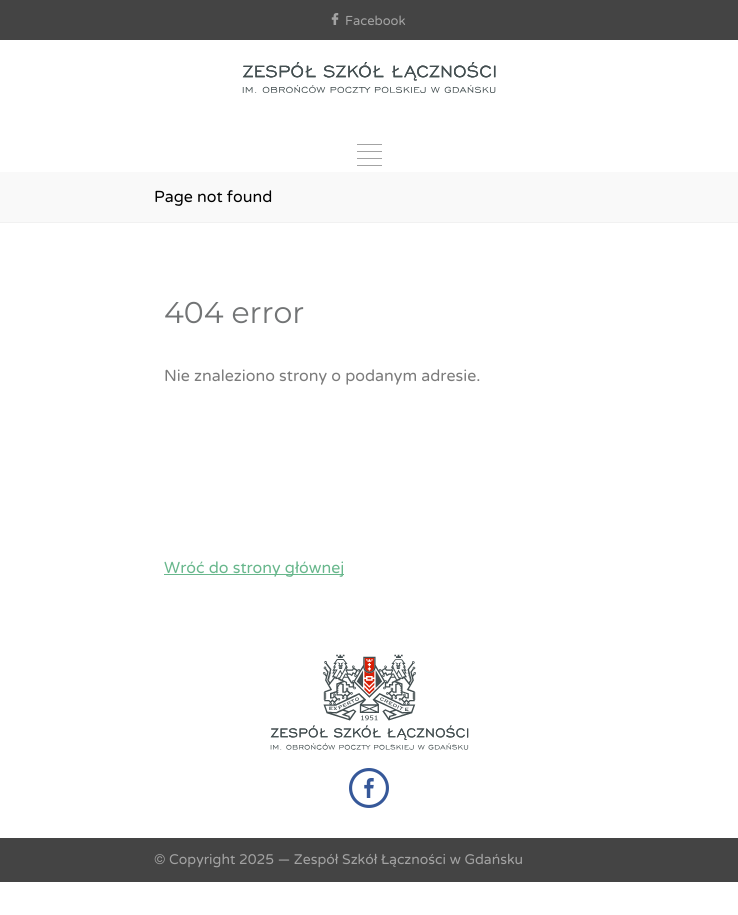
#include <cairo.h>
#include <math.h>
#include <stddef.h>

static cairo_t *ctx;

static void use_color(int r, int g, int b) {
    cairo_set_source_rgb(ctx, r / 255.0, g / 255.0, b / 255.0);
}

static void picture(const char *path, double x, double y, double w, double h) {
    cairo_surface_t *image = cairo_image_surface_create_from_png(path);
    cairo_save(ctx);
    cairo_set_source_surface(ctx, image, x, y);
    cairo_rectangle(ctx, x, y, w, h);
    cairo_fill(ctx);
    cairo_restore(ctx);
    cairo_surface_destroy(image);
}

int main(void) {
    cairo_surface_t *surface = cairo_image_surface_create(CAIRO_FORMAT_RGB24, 738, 915);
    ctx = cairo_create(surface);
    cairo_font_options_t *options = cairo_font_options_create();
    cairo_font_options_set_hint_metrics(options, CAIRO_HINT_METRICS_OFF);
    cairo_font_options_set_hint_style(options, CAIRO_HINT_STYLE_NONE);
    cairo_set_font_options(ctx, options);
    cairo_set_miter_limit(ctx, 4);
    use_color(255, 255, 255);
    cairo_paint(ctx);
    use_color(68, 68, 68);
    cairo_rectangle(ctx, 0, 0, 738, 40);
    cairo_fill(ctx);
    picture("img1.png", 331, 13, 8, 12);
    cairo_select_font_face(ctx, "Varela Round", CAIRO_FONT_SLANT_NORMAL, CAIRO_FONT_WEIGHT_NORMAL);
    cairo_set_font_size(ctx, 13);
    use_color(163, 163, 163);
    cairo_move_to(ctx, 345, 25);
    cairo_show_text(ctx, "Facebook");
    picture("img2.png", 242, 62, 254, 31);
    cairo_rectangle(ctx, 357, 144, 25, 1);
    cairo_fill(ctx);
    cairo_rectangle(ctx, 357, 151, 25, 1);
    cairo_fill(ctx);
    cairo_rectangle(ctx, 357, 158, 25, 1);
    cairo_fill(ctx);
    cairo_rectangle(ctx, 357, 165, 25, 1);
    cairo_fill(ctx);
    use_color(249, 249, 249);
    cairo_rectangle(ctx, 0, 172, 738, 50);
    cairo_fill(ctx);
    use_color(241, 241, 241);
    cairo_rectangle(ctx, 0, 222, 738, 1);
    cairo_fill(ctx);
    cairo_set_font_size(ctx, 16);
    use_color(0, 0, 0);
    cairo_move_to(ctx, 154, 202);
    cairo_show_text(ctx, "Page not found");
    cairo_select_font_face(ctx, "Montserrat", CAIRO_FONT_SLANT_NORMAL, CAIRO_FONT_WEIGHT_NORMAL);
    cairo_set_font_size(ctx, 30);
    use_color(114, 116, 117);
    cairo_move_to(ctx, 164, 323);
    cairo_show_text(ctx, "404 error");
    cairo_select_font_face(ctx, "Varela Round", CAIRO_FONT_SLANT_NORMAL, CAIRO_FONT_WEIGHT_NORMAL);
    cairo_set_font_size(ctx, 16);
    use_color(123, 123, 123);
    cairo_move_to(ctx, 164, 381);
    cairo_show_text(ctx, "Nie znaleziono strony o podanym adresie.");
    use_color(104, 183, 140);
    cairo_rectangle(ctx, 164, 574, 180, 1);
    cairo_fill(ctx);
    cairo_move_to(ctx, 164, 573);
    cairo_show_text(ctx, "Wróć do strony głównej");
    picture("img3.png", 270, 654, 199, 96);
    picture("img4.png", 349, 768, 40, 40);
    use_color(68, 68, 68);
    cairo_rectangle(ctx, 0, 838, 738, 44);
    cairo_fill(ctx);
    cairo_set_font_size(ctx, 14);
    use_color(163, 163, 163);
    cairo_move_to(ctx, 154, 864);
    cairo_show_text(ctx, "© Copyright 2025 — Zespół Szkół Łączności w Gdańsku");
    cairo_surface_write_to_png(surface, "result.png");
    cairo_font_options_destroy(options);
    cairo_destroy(ctx);
    cairo_surface_destroy(surface);
    return 0;
}
